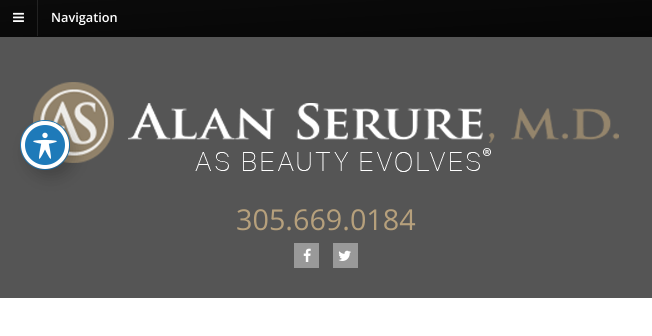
#include <cairo.h>
#include <math.h>
#include <stddef.h>

static cairo_t *ctx;

static void use_color(int r, int g, int b) {
    cairo_set_source_rgb(ctx, r / 255.0, g / 255.0, b / 255.0);
}

static void round_rect(double x, double y, double w, double h, double r) {
    cairo_new_sub_path(ctx);
    cairo_arc(ctx, x + w - r, y + h - r, r, 0, M_PI / 2);
    cairo_arc(ctx, x + r, y + h - r, r, M_PI / 2, M_PI);
    cairo_arc(ctx, x + r, y + r, r, M_PI, 1.5 * M_PI);
    cairo_arc(ctx, x + w - r, y + r, r, 1.5 * M_PI, 2 * M_PI);
    cairo_close_path(ctx);
}

static void shadow(double x, double y, double w, double h, double r, double blur, double alpha) {
    cairo_push_group_with_content(ctx, CAIRO_CONTENT_ALPHA);
    cairo_set_operator(ctx, CAIRO_OPERATOR_SOURCE);
    for (int i = 15; i >= -15 && fmin(w, h) + blur * i / 3 > 0; i -= 2) {
        double e = blur * i / 6;
        cairo_set_source_rgba(ctx, 0, 0, 0, alpha * erfc((i - 1) / 8.5) / 2);
        round_rect(x - e, y - e, w + 2 * e, h + 2 * e, fmax(0, fmin(r + e + blur * .6, fmin(w, h) / 2 + e)));
        cairo_fill(ctx);
    }
    cairo_pattern_t *soft = cairo_pop_group(ctx);
    cairo_mask(ctx, soft);
    cairo_pattern_destroy(soft);
}

static void picture(const char *path, double x, double y, double w, double h) {
    cairo_surface_t *image = cairo_image_surface_create_from_png(path);
    cairo_save(ctx);
    cairo_set_source_surface(ctx, image, x, y);
    cairo_rectangle(ctx, x, y, w, h);
    cairo_fill(ctx);
    cairo_restore(ctx);
    cairo_surface_destroy(image);
}

int main(void) {
    cairo_surface_t *surface = cairo_image_surface_create(CAIRO_FORMAT_RGB24, 652, 336);
    ctx = cairo_create(surface);
    cairo_font_options_t *options = cairo_font_options_create();
    cairo_font_options_set_hint_metrics(options, CAIRO_HINT_METRICS_OFF);
    cairo_font_options_set_hint_style(options, CAIRO_HINT_STYLE_NONE);
    cairo_set_font_options(ctx, options);
    cairo_set_miter_limit(ctx, 4);
    cairo_pattern_t *gradient;
    use_color(255, 255, 255);
    cairo_paint(ctx);
    use_color(85, 85, 85);
    cairo_rectangle(ctx, 0, 37, 652, 261);
    cairo_fill(ctx);
    picture("img3.png", 33, 82, 586, 90);
    cairo_arc(ctx, 45, 145, 24.5, 0, 2 * M_PI);
    use_color(30, 122, 185);
    cairo_set_line_width(ctx, 1);
    cairo_stroke(ctx);
    use_color(0, 0, 0);
    shadow(27, 129, 48, 48, 24, 8, 0.2);
    use_color(30, 122, 185);
    cairo_arc(ctx, 45, 145, 22, 0, 2 * M_PI);
    cairo_fill_preserve(ctx);
    use_color(255, 255, 255);
    cairo_set_line_width(ctx, 4);
    cairo_stroke(ctx);
    picture("img1.png", 33, 132, 24, 27);
    gradient = cairo_pattern_create_linear(324, -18, 328, 54);
    cairo_pattern_add_color_stop_rgba(gradient, 0, 0.043, 0.043, 0.043, 1);
    cairo_pattern_add_color_stop_rgba(gradient, 1, 0.024, 0.024, 0.024, 1);
    cairo_set_source(ctx, gradient);
    cairo_pattern_destroy(gradient);
    cairo_rectangle(ctx, 0, 0, 652, 36);
    cairo_fill(ctx);
    gradient = cairo_pattern_create_linear(324, -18, 328, 54);
    cairo_pattern_add_color_stop_rgba(gradient, 0, 0.137, 0.137, 0.137, 1);
    cairo_pattern_add_color_stop_rgba(gradient, 1, 0.122, 0.122, 0.122, 1);
    cairo_set_source(ctx, gradient);
    cairo_pattern_destroy(gradient);
    cairo_rectangle(ctx, 37, 0, 1, 36);
    cairo_fill(ctx);
    gradient = cairo_pattern_create_linear(324, 18, 328, 90);
    cairo_pattern_add_color_stop_rgba(gradient, 0, 0.035, 0.035, 0.035, 1);
    cairo_pattern_add_color_stop_rgba(gradient, 1, 0.02, 0.02, 0.02, 1);
    cairo_set_source(ctx, gradient);
    cairo_pattern_destroy(gradient);
    cairo_rectangle(ctx, 0, 36, 652, 1);
    cairo_fill(ctx);
    picture("img2.png", 13, 12, 11, 10);
    cairo_select_font_face(ctx, "Open Sans SemiBold", CAIRO_FONT_SLANT_NORMAL, CAIRO_FONT_WEIGHT_NORMAL);
    cairo_set_font_size(ctx, 12.75);
    use_color(255, 255, 255);
    cairo_move_to(ctx, 51, 22);
    cairo_show_text(ctx, "Navigation");
    cairo_select_font_face(ctx, "Open Sans", CAIRO_FONT_SLANT_NORMAL, CAIRO_FONT_WEIGHT_NORMAL);
    cairo_set_font_size(ctx, 28.75);
    use_color(182, 160, 124);
    cairo_move_to(ctx, 236, 230);
    cairo_show_text(ctx, "305.669.0184");
    use_color(153, 153, 153);
    cairo_rectangle(ctx, 294, 243, 25, 25);
    cairo_fill(ctx);
    picture("img4.png", 303, 248, 8, 14);
    cairo_rectangle(ctx, 333, 243, 25, 25);
    cairo_fill(ctx);
    picture("img5.png", 338, 250, 13, 11);
    cairo_surface_write_to_png(surface, "result.png");
    cairo_font_options_destroy(options);
    cairo_destroy(ctx);
    cairo_surface_destroy(surface);
    return 0;
}
